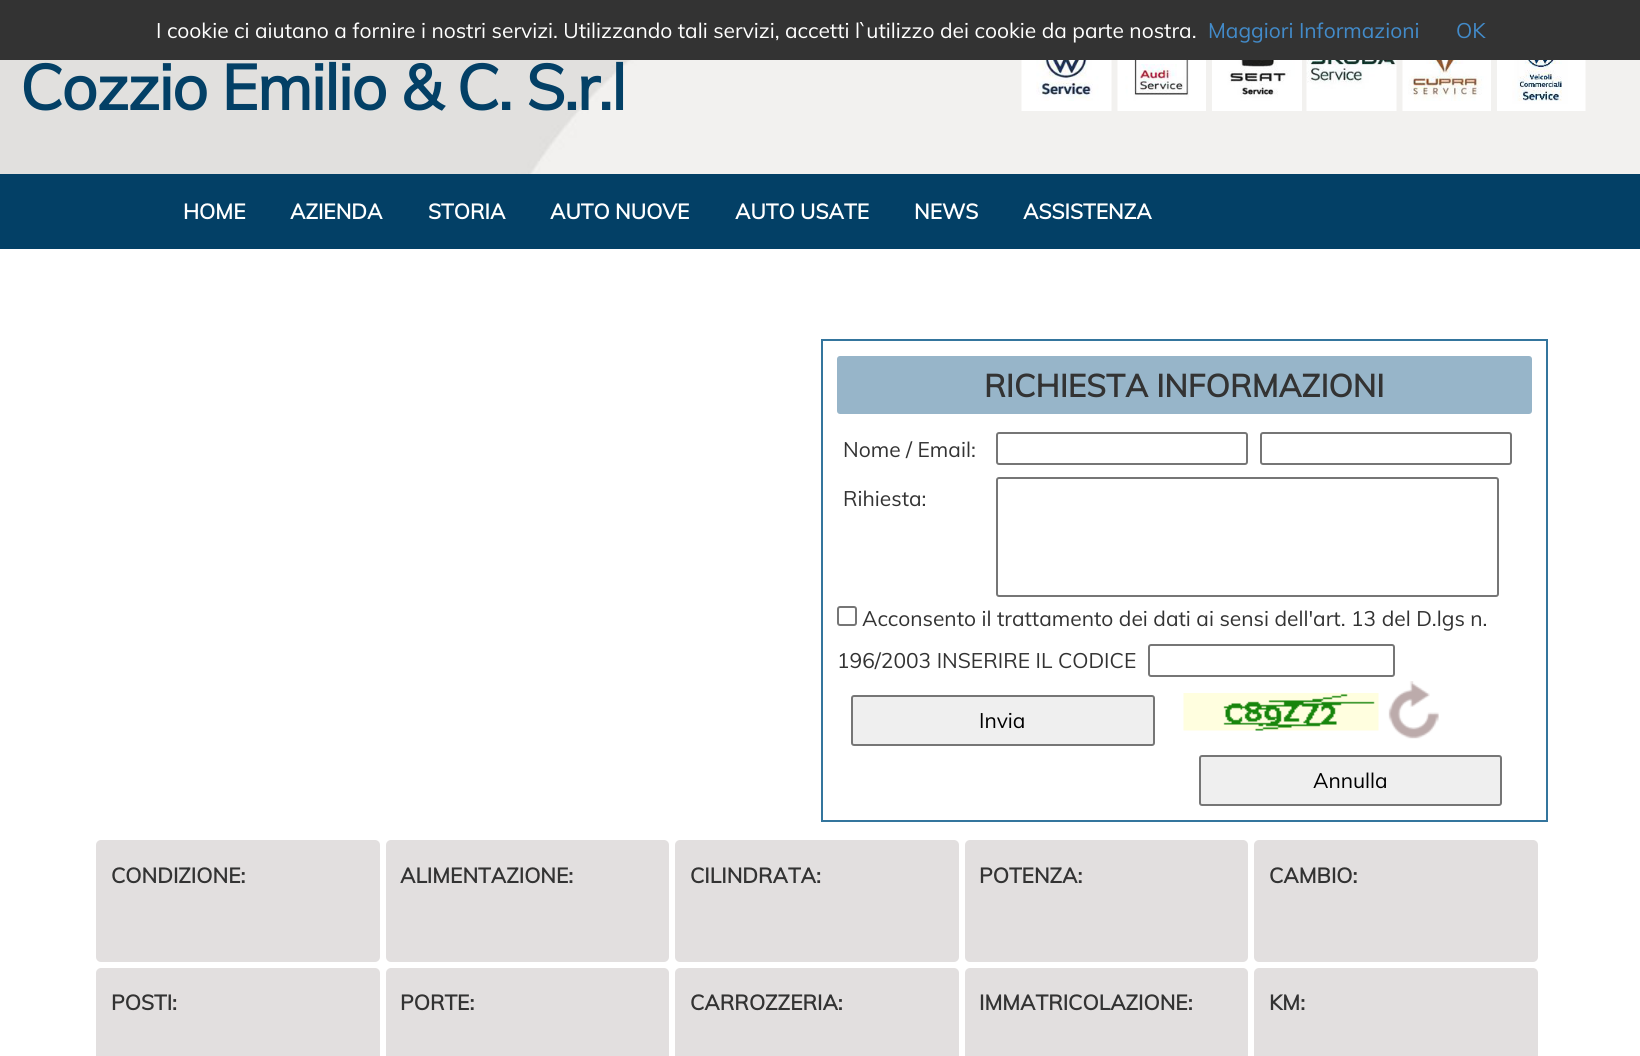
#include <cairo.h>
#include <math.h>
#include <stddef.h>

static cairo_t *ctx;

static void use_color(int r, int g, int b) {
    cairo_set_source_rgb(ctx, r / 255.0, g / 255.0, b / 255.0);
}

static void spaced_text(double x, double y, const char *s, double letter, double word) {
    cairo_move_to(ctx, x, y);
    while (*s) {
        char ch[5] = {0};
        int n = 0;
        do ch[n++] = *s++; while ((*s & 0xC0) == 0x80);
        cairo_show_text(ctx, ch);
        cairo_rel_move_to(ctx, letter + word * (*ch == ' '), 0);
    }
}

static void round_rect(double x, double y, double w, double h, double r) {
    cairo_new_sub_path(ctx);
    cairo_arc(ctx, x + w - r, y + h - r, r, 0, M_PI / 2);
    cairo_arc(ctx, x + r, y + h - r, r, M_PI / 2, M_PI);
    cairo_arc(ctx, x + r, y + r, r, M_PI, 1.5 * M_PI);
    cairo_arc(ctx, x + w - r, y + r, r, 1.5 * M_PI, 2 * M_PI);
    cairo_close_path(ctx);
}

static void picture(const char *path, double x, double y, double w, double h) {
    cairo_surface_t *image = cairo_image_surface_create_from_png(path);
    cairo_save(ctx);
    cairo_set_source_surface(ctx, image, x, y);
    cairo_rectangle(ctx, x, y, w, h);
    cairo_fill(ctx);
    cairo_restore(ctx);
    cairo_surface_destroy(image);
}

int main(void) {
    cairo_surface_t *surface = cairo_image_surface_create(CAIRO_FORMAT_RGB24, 1640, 1056);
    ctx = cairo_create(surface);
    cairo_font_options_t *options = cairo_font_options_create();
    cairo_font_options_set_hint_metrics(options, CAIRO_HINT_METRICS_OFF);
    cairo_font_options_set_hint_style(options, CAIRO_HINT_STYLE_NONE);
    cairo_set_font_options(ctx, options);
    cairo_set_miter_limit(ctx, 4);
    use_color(255, 255, 255);
    cairo_paint(ctx);
    use_color(51, 51, 51);
    cairo_rectangle(ctx, 0, 0, 1640, 60);
    cairo_fill(ctx);
    cairo_select_font_face(ctx, "Muli", CAIRO_FONT_SLANT_NORMAL, CAIRO_FONT_WEIGHT_NORMAL);
    cairo_set_font_size(ctx, 21);
    use_color(255, 255, 255);
    cairo_move_to(ctx, 156, 38);
    cairo_show_text(ctx, "I cookie ci aiutano a fornire i nostri servizi. Utilizzando tali servizi, accetti l`utilizzo dei cookie da parte nostra.");
    use_color(66, 139, 202);
    cairo_move_to(ctx, 1208, 38);
    cairo_show_text(ctx, "Maggiori Informazioni");
    cairo_move_to(ctx, 1456, 38);
    cairo_show_text(ctx, "OK");
    picture("img1.png", 0, 60, 1640, 114);
    cairo_select_font_face(ctx, "Muli", CAIRO_FONT_SLANT_NORMAL, CAIRO_FONT_WEIGHT_BOLD);
    cairo_set_font_size(ctx, 63);
    use_color(3, 64, 102);
    spaced_text(20, 110, "Cozzio Emilio & C. S.r.l", -1.5, 0);
    picture("img2.png", 1021, 60, 91, 51);
    picture("img3.png", 1117, 60, 89, 51);
    picture("img4.png", 1212, 60, 90, 51);
    picture("img5.png", 1306, 60, 91, 51);
    picture("img6.png", 1402, 60, 89, 51);
    picture("img7.png", 1497, 60, 89, 51);
    cairo_rectangle(ctx, 0, 174, 1640, 75);
    cairo_fill(ctx);
    cairo_set_font_size(ctx, 21);
    use_color(255, 255, 255);
    cairo_move_to(ctx, 183, 219);
    cairo_show_text(ctx, "HOME");
    cairo_move_to(ctx, 290, 219);
    cairo_show_text(ctx, "AZIENDA");
    cairo_move_to(ctx, 428, 219);
    cairo_show_text(ctx, "STORIA");
    cairo_move_to(ctx, 550, 219);
    cairo_show_text(ctx, "AUTO NUOVE");
    cairo_move_to(ctx, 735, 219);
    cairo_show_text(ctx, "AUTO USATE");
    cairo_move_to(ctx, 914, 219);
    cairo_show_text(ctx, "NEWS");
    cairo_move_to(ctx, 1023, 219);
    cairo_show_text(ctx, "ASSISTENZA");
    cairo_rectangle(ctx, 822, 340, 725, 481);
    use_color(52, 117, 157);
    cairo_stroke(ctx);
    use_color(151, 181, 201);
    round_rect(837, 356, 695, 58, 3);
    cairo_fill(ctx);
    cairo_set_font_size(ctx, 31.5);
    use_color(51, 51, 51);
    cairo_move_to(ctx, 984, 397);
    cairo_show_text(ctx, "RICHIESTA INFORMAZIONI");
    cairo_select_font_face(ctx, "Muli", CAIRO_FONT_SLANT_NORMAL, CAIRO_FONT_WEIGHT_NORMAL);
    cairo_set_font_size(ctx, 21);
    cairo_move_to(ctx, 843, 457);
    cairo_show_text(ctx, "Nome / Email:");
    round_rect(997, 433, 250, 31, 2);
    use_color(118, 118, 118);
    cairo_stroke(ctx);
    round_rect(1261, 433, 250, 31, 2);
    cairo_stroke(ctx);
    use_color(51, 51, 51);
    cairo_move_to(ctx, 843, 506);
    cairo_show_text(ctx, "Rihiesta:");
    round_rect(997, 478, 501, 118, 2);
    use_color(118, 118, 118);
    cairo_stroke(ctx);
    round_rect(838, 607, 18, 18, 2);
    cairo_stroke(ctx);
    use_color(51, 51, 51);
    cairo_move_to(ctx, 862, 626);
    cairo_show_text(ctx, "Acconsento il trattamento dei dati ai sensi dell'art. 13 del D.lgs n.");
    cairo_move_to(ctx, 837, 668);
    cairo_show_text(ctx, "196/2003 INSERIRE IL CODICE");
    round_rect(1149, 645, 245, 31, 2);
    use_color(118, 118, 118);
    cairo_stroke(ctx);
    use_color(239, 239, 239);
    round_rect(852, 696, 302, 49, 2);
    cairo_fill_preserve(ctx);
    use_color(118, 118, 118);
    cairo_stroke(ctx);
    use_color(0, 0, 0);
    cairo_move_to(ctx, 979, 728);
    cairo_show_text(ctx, "Invia");
    picture("img8.png", 1183, 693, 196, 38);
    picture("img9.png", 1388, 681, 51, 58);
    use_color(239, 239, 239);
    round_rect(1200, 756, 301, 49, 2);
    cairo_fill_preserve(ctx);
    use_color(118, 118, 118);
    cairo_stroke(ctx);
    use_color(0, 0, 0);
    cairo_move_to(ctx, 1313, 788);
    cairo_show_text(ctx, "Annulla");
    use_color(226, 223, 223);
    round_rect(94.5, 838.5, 287, 125, 6.5);
    cairo_fill_preserve(ctx);
    use_color(255, 255, 255);
    cairo_set_line_width(ctx, 3);
    cairo_stroke(ctx);
    cairo_select_font_face(ctx, "Muli", CAIRO_FONT_SLANT_NORMAL, CAIRO_FONT_WEIGHT_BOLD);
    use_color(51, 51, 51);
    cairo_move_to(ctx, 111, 883);
    cairo_show_text(ctx, "CONDIZIONE:");
    use_color(226, 223, 223);
    round_rect(384.5, 838.5, 286, 125, 6.5);
    cairo_fill_preserve(ctx);
    use_color(255, 255, 255);
    cairo_stroke(ctx);
    use_color(51, 51, 51);
    cairo_move_to(ctx, 400, 883);
    cairo_show_text(ctx, "ALIMENTAZIONE:");
    use_color(226, 223, 223);
    round_rect(673.5, 838.5, 287, 125, 6.5);
    cairo_fill_preserve(ctx);
    use_color(255, 255, 255);
    cairo_stroke(ctx);
    use_color(51, 51, 51);
    cairo_move_to(ctx, 690, 883);
    cairo_show_text(ctx, "CILINDRATA:");
    use_color(226, 223, 223);
    round_rect(963.5, 838.5, 286, 125, 6.5);
    cairo_fill_preserve(ctx);
    use_color(255, 255, 255);
    cairo_stroke(ctx);
    use_color(51, 51, 51);
    cairo_move_to(ctx, 979, 883);
    cairo_show_text(ctx, "POTENZA:");
    use_color(226, 223, 223);
    round_rect(1252.5, 838.5, 287, 125, 6.5);
    cairo_fill_preserve(ctx);
    use_color(255, 255, 255);
    cairo_stroke(ctx);
    use_color(51, 51, 51);
    cairo_move_to(ctx, 1269, 883);
    cairo_show_text(ctx, "CAMBIO:");
    use_color(226, 223, 223);
    round_rect(94.5, 966.5, 287, 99, 6.5);
    cairo_fill_preserve(ctx);
    use_color(255, 255, 255);
    cairo_stroke(ctx);
    use_color(51, 51, 51);
    cairo_move_to(ctx, 111, 1010);
    cairo_show_text(ctx, "POSTI:");
    use_color(226, 223, 223);
    round_rect(384.5, 966.5, 286, 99, 6.5);
    cairo_fill_preserve(ctx);
    use_color(255, 255, 255);
    cairo_stroke(ctx);
    use_color(51, 51, 51);
    cairo_move_to(ctx, 400, 1010);
    cairo_show_text(ctx, "PORTE:");
    use_color(226, 223, 223);
    round_rect(673.5, 966.5, 287, 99, 6.5);
    cairo_fill_preserve(ctx);
    use_color(255, 255, 255);
    cairo_stroke(ctx);
    use_color(51, 51, 51);
    cairo_move_to(ctx, 690, 1010);
    cairo_show_text(ctx, "CARROZZERIA:");
    use_color(226, 223, 223);
    round_rect(963.5, 966.5, 286, 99, 6.5);
    cairo_fill_preserve(ctx);
    use_color(255, 255, 255);
    cairo_stroke(ctx);
    use_color(51, 51, 51);
    cairo_move_to(ctx, 979, 1010);
    cairo_show_text(ctx, "IMMATRICOLAZIONE:");
    use_color(226, 223, 223);
    round_rect(1252.5, 966.5, 287, 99, 6.5);
    cairo_fill_preserve(ctx);
    use_color(255, 255, 255);
    cairo_stroke(ctx);
    use_color(51, 51, 51);
    cairo_move_to(ctx, 1269, 1010);
    cairo_show_text(ctx, "KM:");
    cairo_surface_write_to_png(surface, "result.png");
    cairo_font_options_destroy(options);
    cairo_destroy(ctx);
    cairo_surface_destroy(surface);
    return 0;
}
